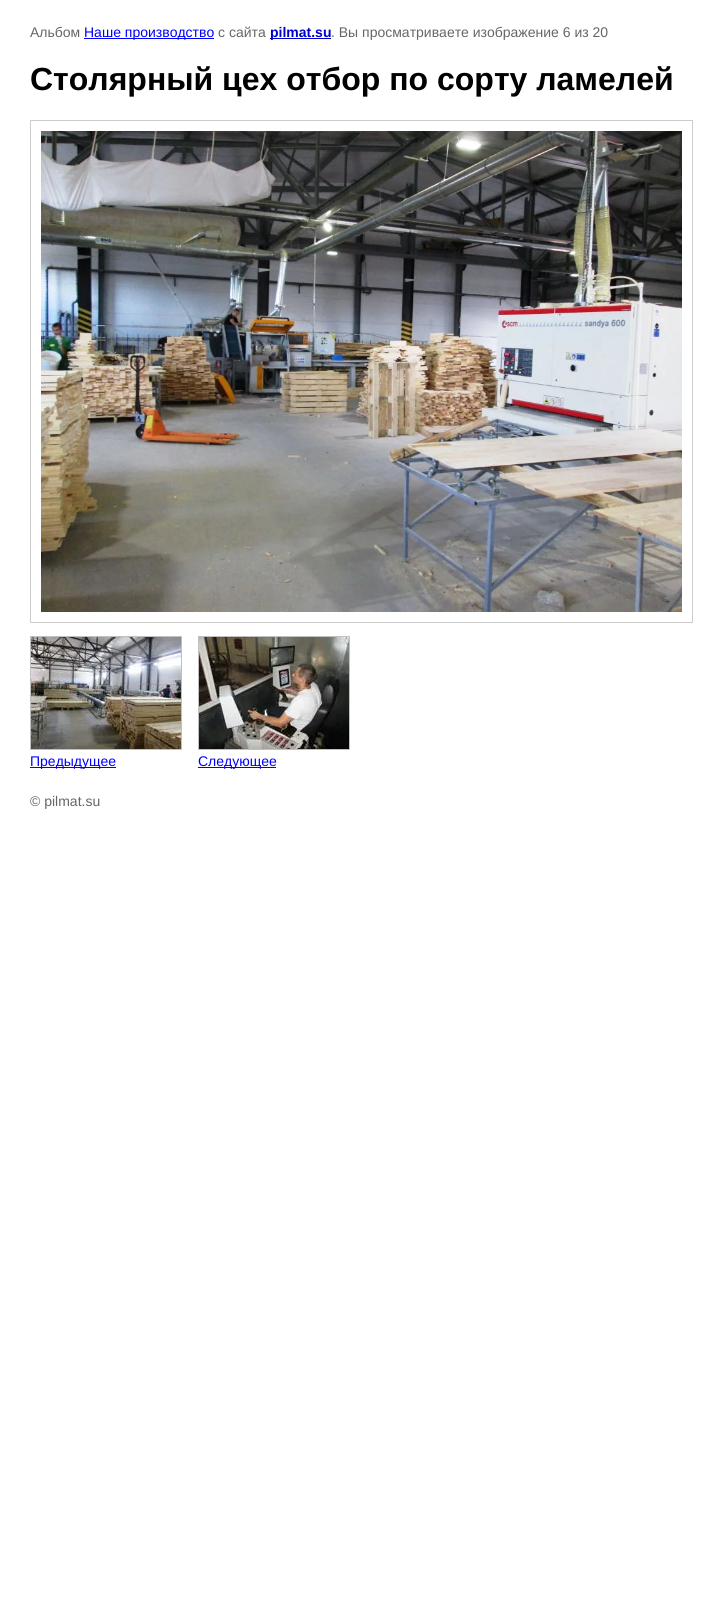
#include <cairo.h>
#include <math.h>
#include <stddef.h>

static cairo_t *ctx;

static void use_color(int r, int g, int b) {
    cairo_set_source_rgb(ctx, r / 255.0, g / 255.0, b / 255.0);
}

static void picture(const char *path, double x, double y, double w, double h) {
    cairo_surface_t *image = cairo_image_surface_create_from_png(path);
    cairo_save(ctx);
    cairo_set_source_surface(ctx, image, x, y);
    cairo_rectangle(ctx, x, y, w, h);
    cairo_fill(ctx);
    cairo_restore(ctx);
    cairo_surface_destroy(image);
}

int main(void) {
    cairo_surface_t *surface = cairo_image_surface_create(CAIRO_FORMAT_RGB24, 723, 1618);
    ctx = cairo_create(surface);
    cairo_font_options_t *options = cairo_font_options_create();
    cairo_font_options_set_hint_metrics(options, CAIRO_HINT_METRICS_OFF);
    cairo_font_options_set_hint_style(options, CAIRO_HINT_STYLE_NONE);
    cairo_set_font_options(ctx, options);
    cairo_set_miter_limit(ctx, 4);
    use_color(255, 255, 255);
    cairo_paint(ctx);
    cairo_select_font_face(ctx, "Liberation Sans", CAIRO_FONT_SLANT_NORMAL, CAIRO_FONT_WEIGHT_NORMAL);
    cairo_set_font_size(ctx, 14);
    use_color(102, 102, 102);
    cairo_move_to(ctx, 30, 37);
    cairo_show_text(ctx, "Альбом");
    use_color(0, 0, 255);
    cairo_rectangle(ctx, 84, 38, 130, 1);
    cairo_fill(ctx);
    cairo_move_to(ctx, 84, 37);
    cairo_show_text(ctx, "Наше производство");
    use_color(102, 102, 102);
    cairo_move_to(ctx, 218, 37);
    cairo_show_text(ctx, "с сайта");
    use_color(0, 0, 204);
    cairo_rectangle(ctx, 270, 38, 61, 1);
    cairo_fill(ctx);
    cairo_select_font_face(ctx, "Liberation Sans", CAIRO_FONT_SLANT_NORMAL, CAIRO_FONT_WEIGHT_BOLD);
    cairo_move_to(ctx, 270, 37);
    cairo_show_text(ctx, "pilmat.su");
    cairo_select_font_face(ctx, "Liberation Sans", CAIRO_FONT_SLANT_NORMAL, CAIRO_FONT_WEIGHT_NORMAL);
    use_color(102, 102, 102);
    cairo_move_to(ctx, 331, 37);
    cairo_show_text(ctx, ". Вы просматриваете изображение 6 из 20");
    cairo_select_font_face(ctx, "Liberation Sans", CAIRO_FONT_SLANT_NORMAL, CAIRO_FONT_WEIGHT_BOLD);
    cairo_set_font_size(ctx, 32);
    use_color(0, 0, 0);
    cairo_move_to(ctx, 30, 90);
    cairo_show_text(ctx, "Столярный цех отбор по сорту ламелей");
    cairo_rectangle(ctx, 30.5, 120.5, 662, 502);
    use_color(204, 204, 204);
    cairo_set_line_width(ctx, 1);
    cairo_stroke(ctx);
    picture("img1.png", 41, 131, 641, 481);
    cairo_rectangle(ctx, 30.5, 636.5, 151, 113);
    use_color(192, 192, 192);
    cairo_stroke(ctx);
    picture("img2.png", 31, 637, 150, 112);
    use_color(0, 0, 255);
    cairo_rectangle(ctx, 30, 767, 86, 1);
    cairo_fill(ctx);
    cairo_select_font_face(ctx, "Liberation Sans", CAIRO_FONT_SLANT_NORMAL, CAIRO_FONT_WEIGHT_NORMAL);
    cairo_set_font_size(ctx, 14);
    cairo_move_to(ctx, 30, 766);
    cairo_show_text(ctx, "Предыдущее");
    cairo_rectangle(ctx, 198.5, 636.5, 151, 113);
    use_color(192, 192, 192);
    cairo_stroke(ctx);
    picture("img3.png", 199, 637, 150, 112);
    use_color(0, 0, 255);
    cairo_rectangle(ctx, 198, 767, 78, 1);
    cairo_fill(ctx);
    cairo_move_to(ctx, 198, 766);
    cairo_show_text(ctx, "Следующее");
    use_color(102, 102, 102);
    cairo_move_to(ctx, 30, 806);
    cairo_show_text(ctx, "© pilmat.su");
    cairo_surface_write_to_png(surface, "result.png");
    cairo_font_options_destroy(options);
    cairo_destroy(ctx);
    cairo_surface_destroy(surface);
    return 0;
}
